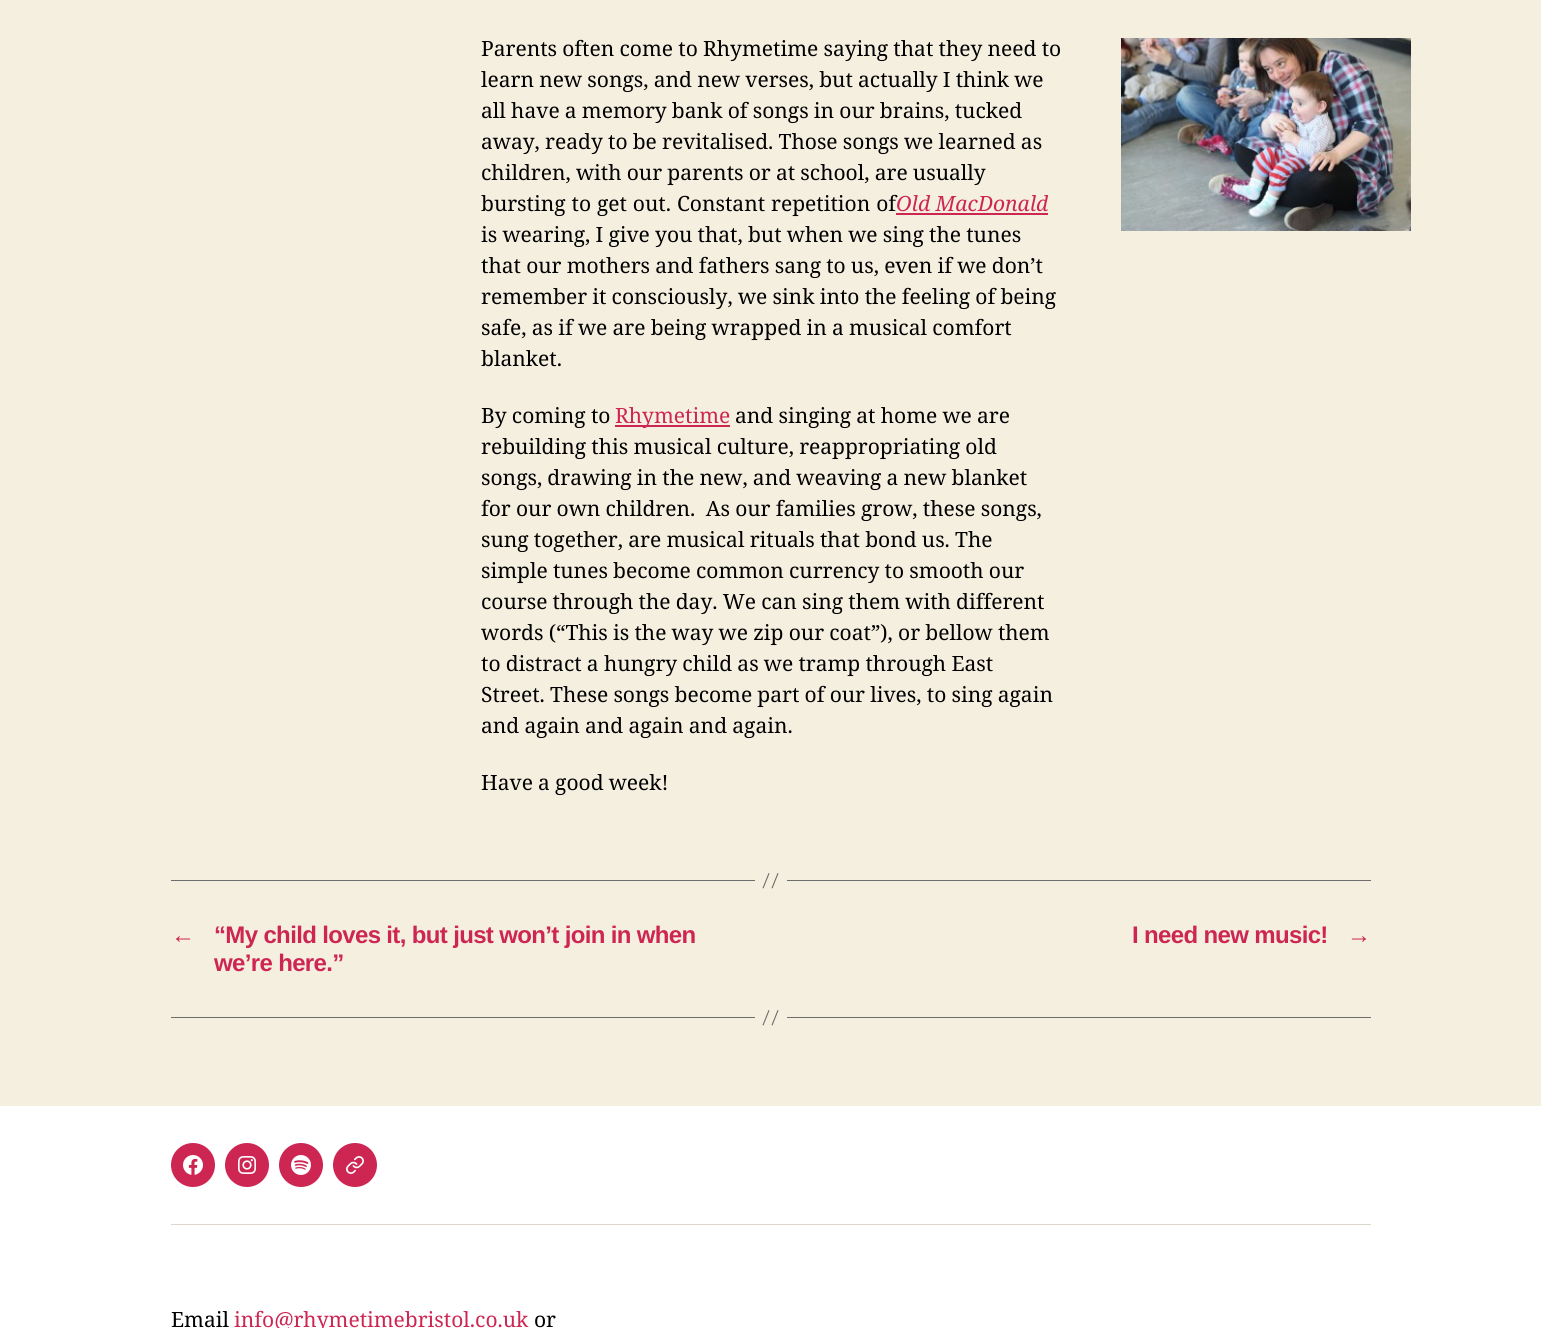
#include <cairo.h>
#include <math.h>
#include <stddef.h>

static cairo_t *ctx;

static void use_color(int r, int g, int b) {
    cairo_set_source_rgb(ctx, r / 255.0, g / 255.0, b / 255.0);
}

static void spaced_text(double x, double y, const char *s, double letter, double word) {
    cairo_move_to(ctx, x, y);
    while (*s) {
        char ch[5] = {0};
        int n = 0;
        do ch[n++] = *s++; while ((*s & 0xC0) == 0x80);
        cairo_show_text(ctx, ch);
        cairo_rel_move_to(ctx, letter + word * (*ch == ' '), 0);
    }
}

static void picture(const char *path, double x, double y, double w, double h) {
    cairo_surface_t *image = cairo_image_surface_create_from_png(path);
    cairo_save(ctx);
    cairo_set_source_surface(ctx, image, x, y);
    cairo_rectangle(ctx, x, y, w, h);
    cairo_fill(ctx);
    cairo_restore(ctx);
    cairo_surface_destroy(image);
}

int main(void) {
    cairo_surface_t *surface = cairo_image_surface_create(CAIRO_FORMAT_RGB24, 1541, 1328);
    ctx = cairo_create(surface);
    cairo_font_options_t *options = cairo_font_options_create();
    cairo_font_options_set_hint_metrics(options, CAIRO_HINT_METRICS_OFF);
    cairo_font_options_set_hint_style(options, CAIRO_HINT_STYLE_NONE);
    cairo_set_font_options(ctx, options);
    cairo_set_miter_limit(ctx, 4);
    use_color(245, 239, 224);
    cairo_paint(ctx);
    cairo_select_font_face(ctx, "Noto Serif", CAIRO_FONT_SLANT_NORMAL, CAIRO_FONT_WEIGHT_NORMAL);
    cairo_set_font_size(ctx, 21);
    use_color(0, 0, 0);
    spaced_text(481, 56, "Parents often come to Rhymetime saying that they need to", 0, -0.25);
    picture("img1.png", 1121, 38, 290, 193);
    spaced_text(481, 87, "learn new songs, and new verses, but actually I think we", 0, -0.25);
    spaced_text(481, 118, "all have a memory bank of songs in our brains, tucked", 0, -0.25);
    spaced_text(481, 149, "away, ready to be revitalised. Those songs we learned as", 0, -0.25);
    spaced_text(481, 180, "children, with our parents or at school, are usually", 0, -0.25);
    spaced_text(481, 211, "bursting to get out. Constant repetition of", 0, 0.5);
    cairo_select_font_face(ctx, "Noto Serif", CAIRO_FONT_SLANT_ITALIC, CAIRO_FONT_WEIGHT_NORMAL);
    use_color(205, 38, 83);
    cairo_move_to(ctx, 896, 211);
    cairo_show_text(ctx, "Old MacDonald");
    cairo_rectangle(ctx, 896, 213, 152, 2);
    cairo_fill(ctx);
    cairo_select_font_face(ctx, "Noto Serif", CAIRO_FONT_SLANT_NORMAL, CAIRO_FONT_WEIGHT_NORMAL);
    use_color(0, 0, 0);
    spaced_text(481, 242, "is wearing, I give you that, but when we sing the tunes", 0, -0.25);
    spaced_text(481, 273, "that our mothers and fathers sang to us, even if we don’t", 0, -0.25);
    spaced_text(481, 304, "remember it consciously, we sink into the feeling of being", 0, -0.25);
    spaced_text(481, 335, "safe, as if we are being wrapped in a musical comfort", 0, -0.25);
    cairo_move_to(ctx, 481, 366);
    cairo_show_text(ctx, "blanket.");
    spaced_text(481, 423, "By coming to", 0, -0.25);
    use_color(205, 38, 83);
    cairo_rectangle(ctx, 615, 425, 115, 2);
    cairo_fill(ctx);
    cairo_move_to(ctx, 615, 423);
    cairo_show_text(ctx, "Rhymetime");
    use_color(0, 0, 0);
    spaced_text(735, 423, "and singing at home we are", 0, -0.25);
    spaced_text(481, 454, "rebuilding this musical culture, reappropriating old", 0, -0.25);
    spaced_text(481, 485, "songs, drawing in the new, and weaving a new blanket", 0, -0.25);
    spaced_text(481, 516, "for our own children.  As our families grow, these songs,", 0, -0.25);
    spaced_text(481, 547, "sung together, are musical rituals that bond us. The", 0, -0.25);
    spaced_text(481, 578, "simple tunes become common currency to smooth our", 0, -0.25);
    spaced_text(481, 609, "course through the day. We can sing them with different", 0, -0.25);
    spaced_text(481, 640, "words (“This is the way we zip our coat”), or bellow them", 0, -0.25);
    spaced_text(481, 671, "to distract a hungry child as we tramp through East", 0, -0.25);
    spaced_text(481, 702, "Street. These songs become part of our lives, to sing again", 0, -0.25);
    spaced_text(481, 733, "and again and again and again.", 0, -0.25);
    spaced_text(481, 790, "Have a good week!", 0, -0.25);
    use_color(109, 109, 109);
    cairo_rectangle(ctx, 787, 880, 584, 1);
    cairo_fill(ctx);
    cairo_rectangle(ctx, 171, 880, 584, 1);
    cairo_fill(ctx);
    cairo_new_path(ctx);
    cairo_move_to(ctx, 768.5, 873);
    cairo_line_to(ctx, 769.5, 873.5);
    cairo_line_to(ctx, 763.5, 888.5);
    cairo_line_to(ctx, 762.5, 888);
    cairo_close_path(ctx);
    cairo_move_to(ctx, 777.5, 873);
    cairo_line_to(ctx, 778.5, 873.5);
    cairo_line_to(ctx, 772.5, 888.5);
    cairo_line_to(ctx, 771.5, 888);
    cairo_close_path(ctx);
    cairo_fill(ctx);
    cairo_select_font_face(ctx, "Liberation Sans", CAIRO_FONT_SLANT_NORMAL, CAIRO_FONT_WEIGHT_BOLD);
    cairo_set_font_size(ctx, 24);
    use_color(205, 38, 83);
    spaced_text(171, 943, "←", -0.65, 0);
    spaced_text(214, 943, "“My child loves it, but just won’t join in when", -0.65, 0);
    spaced_text(214, 971, "we’re here.”", -0.65, 0);
    spaced_text(1132, 943, "I need new music!", -0.65, 0);
    spaced_text(1347, 943, "→", -0.65, 0);
    use_color(109, 109, 109);
    cairo_rectangle(ctx, 787, 1017, 584, 1);
    cairo_fill(ctx);
    cairo_rectangle(ctx, 171, 1017, 584, 1);
    cairo_fill(ctx);
    cairo_new_path(ctx);
    cairo_move_to(ctx, 768.5, 1010);
    cairo_line_to(ctx, 769.5, 1010.5);
    cairo_line_to(ctx, 763.5, 1025.5);
    cairo_line_to(ctx, 762.5, 1025);
    cairo_close_path(ctx);
    cairo_move_to(ctx, 777.5, 1010);
    cairo_line_to(ctx, 778.5, 1010.5);
    cairo_line_to(ctx, 772.5, 1025.5);
    cairo_line_to(ctx, 771.5, 1025);
    cairo_close_path(ctx);
    cairo_fill(ctx);
    use_color(255, 255, 255);
    cairo_rectangle(ctx, 0, 1106, 1541, 222);
    cairo_fill(ctx);
    use_color(220, 215, 202);
    cairo_rectangle(ctx, 171, 1224, 1200, 1);
    cairo_fill(ctx);
    use_color(205, 38, 83);
    cairo_arc(ctx, 193, 1165, 22, 0, 2 * M_PI);
    cairo_fill(ctx);
    picture("img2.png", 183, 1155, 20, 20);
    cairo_arc(ctx, 247, 1165, 22, 0, 2 * M_PI);
    cairo_fill(ctx);
    picture("img3.png", 238, 1156, 18, 18);
    cairo_arc(ctx, 301, 1165, 22, 0, 2 * M_PI);
    cairo_fill(ctx);
    picture("img4.png", 291, 1155, 20, 20);
    cairo_arc(ctx, 355, 1165, 22, 0, 2 * M_PI);
    cairo_fill(ctx);
    picture("img5.png", 346, 1156, 18, 18);
    cairo_select_font_face(ctx, "Noto Serif", CAIRO_FONT_SLANT_NORMAL, CAIRO_FONT_WEIGHT_NORMAL);
    cairo_set_font_size(ctx, 21);
    use_color(0, 0, 0);
    cairo_move_to(ctx, 171, 1327);
    cairo_show_text(ctx, "Email");
    use_color(205, 38, 83);
    cairo_move_to(ctx, 234, 1327);
    cairo_show_text(ctx, "info@rhymetimebristol.co.uk");
    use_color(0, 0, 0);
    cairo_move_to(ctx, 534, 1327);
    cairo_show_text(ctx, "or");
    cairo_surface_write_to_png(surface, "result.png");
    cairo_font_options_destroy(options);
    cairo_destroy(ctx);
    cairo_surface_destroy(surface);
    return 0;
}
